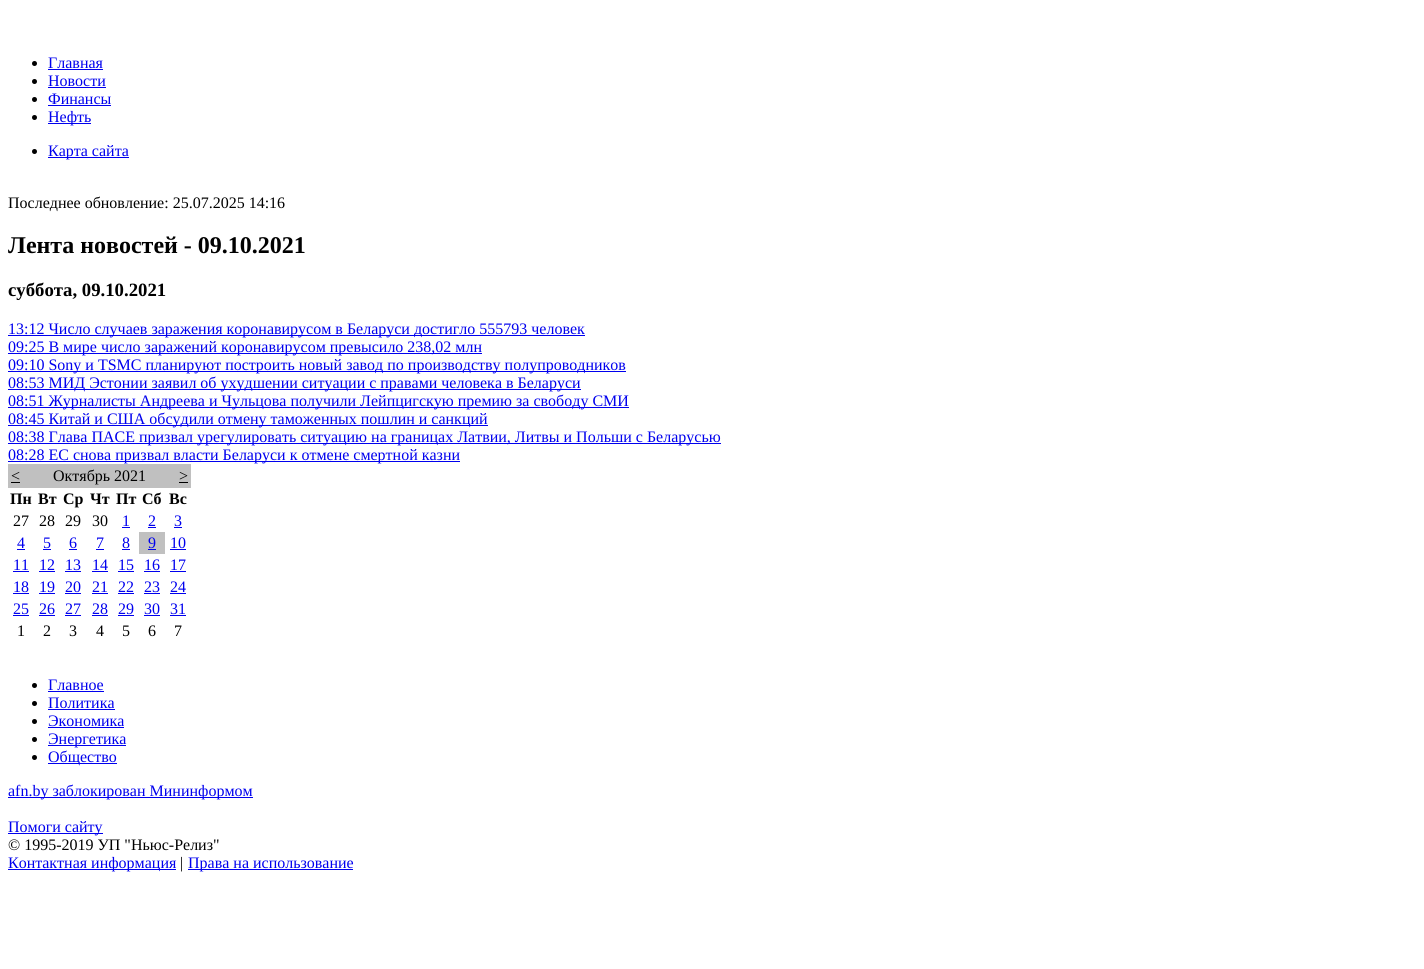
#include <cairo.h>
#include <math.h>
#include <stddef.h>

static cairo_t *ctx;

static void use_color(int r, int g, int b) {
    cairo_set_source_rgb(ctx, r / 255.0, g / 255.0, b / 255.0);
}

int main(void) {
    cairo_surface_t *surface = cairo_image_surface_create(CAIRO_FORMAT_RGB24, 1424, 969);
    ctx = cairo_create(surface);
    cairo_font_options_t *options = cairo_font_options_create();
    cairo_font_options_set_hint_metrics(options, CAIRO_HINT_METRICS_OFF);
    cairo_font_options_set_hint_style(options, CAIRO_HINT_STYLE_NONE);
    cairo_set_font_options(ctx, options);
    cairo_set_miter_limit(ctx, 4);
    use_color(255, 255, 255);
    cairo_paint(ctx);
    use_color(0, 0, 0);
    cairo_arc(ctx, 34.5, 63.5, 2.5, 0, 2 * M_PI);
    cairo_fill(ctx);
    cairo_select_font_face(ctx, "Liberation Serif", CAIRO_FONT_SLANT_NORMAL, CAIRO_FONT_WEIGHT_NORMAL);
    cairo_set_font_size(ctx, 16);
    use_color(0, 0, 238);
    cairo_move_to(ctx, 48, 68);
    cairo_show_text(ctx, "Главная");
    cairo_rectangle(ctx, 48, 69, 55, 1);
    cairo_fill(ctx);
    use_color(0, 0, 0);
    cairo_arc(ctx, 34.5, 81.5, 2.5, 0, 2 * M_PI);
    cairo_fill(ctx);
    use_color(0, 0, 238);
    cairo_move_to(ctx, 48, 86);
    cairo_show_text(ctx, "Новости");
    cairo_rectangle(ctx, 48, 87, 58, 1);
    cairo_fill(ctx);
    use_color(0, 0, 0);
    cairo_arc(ctx, 34.5, 99.5, 2.5, 0, 2 * M_PI);
    cairo_fill(ctx);
    use_color(0, 0, 238);
    cairo_move_to(ctx, 48, 104);
    cairo_show_text(ctx, "Финансы");
    cairo_rectangle(ctx, 48, 105, 63, 1);
    cairo_fill(ctx);
    use_color(0, 0, 0);
    cairo_arc(ctx, 34.5, 117.5, 2.5, 0, 2 * M_PI);
    cairo_fill(ctx);
    use_color(0, 0, 238);
    cairo_rectangle(ctx, 48, 123, 43, 1);
    cairo_fill(ctx);
    cairo_move_to(ctx, 48, 122);
    cairo_show_text(ctx, "Нефть");
    use_color(0, 0, 0);
    cairo_new_path(ctx);
    cairo_arc(ctx, 34.5, 151.5, 2.5, 0, 2 * M_PI);
    cairo_fill(ctx);
    use_color(0, 0, 238);
    cairo_rectangle(ctx, 48, 157, 81, 1);
    cairo_fill(ctx);
    cairo_move_to(ctx, 48, 156);
    cairo_show_text(ctx, "Карта сайта");
    use_color(0, 0, 0);
    cairo_move_to(ctx, 8, 208);
    cairo_show_text(ctx, "Последнее обновление: 25.07.2025 14:16");
    cairo_select_font_face(ctx, "Liberation Serif", CAIRO_FONT_SLANT_NORMAL, CAIRO_FONT_WEIGHT_BOLD);
    cairo_set_font_size(ctx, 24);
    cairo_move_to(ctx, 8, 253);
    cairo_show_text(ctx, "Лента новостей - 09.10.2021");
    cairo_set_font_size(ctx, 18.75);
    cairo_move_to(ctx, 8, 296);
    cairo_show_text(ctx, "суббота, 09.10.2021");
    use_color(0, 0, 238);
    cairo_rectangle(ctx, 8, 335, 577, 1);
    cairo_fill(ctx);
    cairo_select_font_face(ctx, "Liberation Serif", CAIRO_FONT_SLANT_NORMAL, CAIRO_FONT_WEIGHT_NORMAL);
    cairo_set_font_size(ctx, 16);
    cairo_move_to(ctx, 8, 334);
    cairo_show_text(ctx, "13:12 Число случаев заражения коронавирусом в Беларуси достигло 555793 человек");
    cairo_rectangle(ctx, 8, 353, 474, 1);
    cairo_fill(ctx);
    cairo_move_to(ctx, 8, 352);
    cairo_show_text(ctx, "09:25 В мире число заражений коронавирусом превысило 238,02 млн");
    cairo_rectangle(ctx, 8, 371, 618, 1);
    cairo_fill(ctx);
    cairo_move_to(ctx, 8, 370);
    cairo_show_text(ctx, "09:10 Sony и TSMC планируют построить новый завод по производству полупроводников");
    cairo_rectangle(ctx, 8, 389, 573, 1);
    cairo_fill(ctx);
    cairo_move_to(ctx, 8, 388);
    cairo_show_text(ctx, "08:53 МИД Эстонии заявил об ухудшении ситуации с правами человека в Беларуси");
    cairo_rectangle(ctx, 8, 407, 621, 1);
    cairo_fill(ctx);
    cairo_move_to(ctx, 8, 406);
    cairo_show_text(ctx, "08:51 Журналисты Андреева и Чульцова получили Лейпцигскую премию за свободу СМИ");
    cairo_rectangle(ctx, 8, 425, 480, 1);
    cairo_fill(ctx);
    cairo_move_to(ctx, 8, 424);
    cairo_show_text(ctx, "08:45 Китай и США обсудили отмену таможенных пошлин и санкций");
    cairo_rectangle(ctx, 8, 443, 713, 1);
    cairo_fill(ctx);
    cairo_move_to(ctx, 8, 442);
    cairo_show_text(ctx, "08:38 Глава ПАСЕ призвал урегулировать ситуацию на границах Латвии, Литвы и Польши с Беларусью");
    cairo_rectangle(ctx, 8, 461, 452, 1);
    cairo_fill(ctx);
    cairo_move_to(ctx, 8, 460);
    cairo_show_text(ctx, "08:28 ЕС снова призвал власти Беларуси к отмене смертной казни");
    use_color(192, 192, 192);
    cairo_rectangle(ctx, 8, 464, 183, 24);
    cairo_fill(ctx);
    use_color(0, 0, 0);
    cairo_move_to(ctx, 11, 481);
    cairo_show_text(ctx, "<");
    cairo_rectangle(ctx, 11, 482, 9, 1);
    cairo_fill(ctx);
    cairo_move_to(ctx, 53, 481);
    cairo_show_text(ctx, "Октябрь 2021");
    cairo_move_to(ctx, 179, 481);
    cairo_show_text(ctx, ">");
    cairo_rectangle(ctx, 179, 482, 9, 1);
    cairo_fill(ctx);
    cairo_select_font_face(ctx, "Liberation Serif", CAIRO_FONT_SLANT_NORMAL, CAIRO_FONT_WEIGHT_BOLD);
    cairo_move_to(ctx, 10, 504);
    cairo_show_text(ctx, "Пн");
    cairo_move_to(ctx, 38, 504);
    cairo_show_text(ctx, "Вт");
    cairo_move_to(ctx, 63, 504);
    cairo_show_text(ctx, "Ср");
    cairo_move_to(ctx, 90, 504);
    cairo_show_text(ctx, "Чт");
    cairo_move_to(ctx, 116, 504);
    cairo_show_text(ctx, "Пт");
    cairo_move_to(ctx, 142, 504);
    cairo_show_text(ctx, "Сб");
    cairo_move_to(ctx, 169, 504);
    cairo_show_text(ctx, "Вс");
    cairo_select_font_face(ctx, "Liberation Serif", CAIRO_FONT_SLANT_NORMAL, CAIRO_FONT_WEIGHT_NORMAL);
    cairo_move_to(ctx, 13, 526);
    cairo_show_text(ctx, "27");
    cairo_move_to(ctx, 39, 526);
    cairo_show_text(ctx, "28");
    cairo_move_to(ctx, 65, 526);
    cairo_show_text(ctx, "29");
    cairo_move_to(ctx, 92, 526);
    cairo_show_text(ctx, "30");
    use_color(0, 0, 238);
    cairo_move_to(ctx, 122, 526);
    cairo_show_text(ctx, "1");
    cairo_rectangle(ctx, 122, 527, 8, 1);
    cairo_fill(ctx);
    cairo_move_to(ctx, 148, 526);
    cairo_show_text(ctx, "2");
    cairo_rectangle(ctx, 148, 527, 8, 1);
    cairo_fill(ctx);
    cairo_move_to(ctx, 174, 526);
    cairo_show_text(ctx, "3");
    cairo_rectangle(ctx, 174, 527, 8, 1);
    cairo_fill(ctx);
    cairo_move_to(ctx, 17, 548);
    cairo_show_text(ctx, "4");
    cairo_rectangle(ctx, 17, 549, 8, 1);
    cairo_fill(ctx);
    cairo_move_to(ctx, 43, 548);
    cairo_show_text(ctx, "5");
    cairo_rectangle(ctx, 43, 549, 8, 1);
    cairo_fill(ctx);
    cairo_move_to(ctx, 69, 548);
    cairo_show_text(ctx, "6");
    cairo_rectangle(ctx, 69, 549, 8, 1);
    cairo_fill(ctx);
    cairo_move_to(ctx, 96, 548);
    cairo_show_text(ctx, "7");
    cairo_rectangle(ctx, 96, 549, 8, 1);
    cairo_fill(ctx);
    cairo_move_to(ctx, 122, 548);
    cairo_show_text(ctx, "8");
    cairo_rectangle(ctx, 122, 549, 8, 1);
    cairo_fill(ctx);
    use_color(192, 192, 192);
    cairo_rectangle(ctx, 139, 532, 26, 22);
    cairo_fill(ctx);
    use_color(0, 0, 238);
    cairo_move_to(ctx, 148, 548);
    cairo_show_text(ctx, "9");
    cairo_rectangle(ctx, 148, 549, 8, 1);
    cairo_fill(ctx);
    cairo_move_to(ctx, 170, 548);
    cairo_show_text(ctx, "10");
    cairo_rectangle(ctx, 170, 549, 16, 1);
    cairo_fill(ctx);
    cairo_move_to(ctx, 13, 570);
    cairo_show_text(ctx, "11");
    cairo_rectangle(ctx, 13, 571, 16, 1);
    cairo_fill(ctx);
    cairo_move_to(ctx, 39, 570);
    cairo_show_text(ctx, "12");
    cairo_rectangle(ctx, 39, 571, 16, 1);
    cairo_fill(ctx);
    cairo_move_to(ctx, 65, 570);
    cairo_show_text(ctx, "13");
    cairo_rectangle(ctx, 65, 571, 16, 1);
    cairo_fill(ctx);
    cairo_move_to(ctx, 92, 570);
    cairo_show_text(ctx, "14");
    cairo_rectangle(ctx, 92, 571, 16, 1);
    cairo_fill(ctx);
    cairo_move_to(ctx, 118, 570);
    cairo_show_text(ctx, "15");
    cairo_rectangle(ctx, 118, 571, 16, 1);
    cairo_fill(ctx);
    cairo_move_to(ctx, 144, 570);
    cairo_show_text(ctx, "16");
    cairo_rectangle(ctx, 144, 571, 16, 1);
    cairo_fill(ctx);
    cairo_move_to(ctx, 170, 570);
    cairo_show_text(ctx, "17");
    cairo_rectangle(ctx, 170, 571, 16, 1);
    cairo_fill(ctx);
    cairo_move_to(ctx, 13, 592);
    cairo_show_text(ctx, "18");
    cairo_rectangle(ctx, 13, 593, 16, 1);
    cairo_fill(ctx);
    cairo_move_to(ctx, 39, 592);
    cairo_show_text(ctx, "19");
    cairo_rectangle(ctx, 39, 593, 16, 1);
    cairo_fill(ctx);
    cairo_move_to(ctx, 65, 592);
    cairo_show_text(ctx, "20");
    cairo_rectangle(ctx, 65, 593, 16, 1);
    cairo_fill(ctx);
    cairo_move_to(ctx, 92, 592);
    cairo_show_text(ctx, "21");
    cairo_rectangle(ctx, 92, 593, 16, 1);
    cairo_fill(ctx);
    cairo_move_to(ctx, 118, 592);
    cairo_show_text(ctx, "22");
    cairo_rectangle(ctx, 118, 593, 16, 1);
    cairo_fill(ctx);
    cairo_move_to(ctx, 144, 592);
    cairo_show_text(ctx, "23");
    cairo_rectangle(ctx, 144, 593, 16, 1);
    cairo_fill(ctx);
    cairo_move_to(ctx, 170, 592);
    cairo_show_text(ctx, "24");
    cairo_rectangle(ctx, 170, 593, 16, 1);
    cairo_fill(ctx);
    cairo_move_to(ctx, 13, 614);
    cairo_show_text(ctx, "25");
    cairo_rectangle(ctx, 13, 615, 16, 1);
    cairo_fill(ctx);
    cairo_move_to(ctx, 39, 614);
    cairo_show_text(ctx, "26");
    cairo_rectangle(ctx, 39, 615, 16, 1);
    cairo_fill(ctx);
    cairo_move_to(ctx, 65, 614);
    cairo_show_text(ctx, "27");
    cairo_rectangle(ctx, 65, 615, 16, 1);
    cairo_fill(ctx);
    cairo_move_to(ctx, 92, 614);
    cairo_show_text(ctx, "28");
    cairo_rectangle(ctx, 92, 615, 16, 1);
    cairo_fill(ctx);
    cairo_move_to(ctx, 118, 614);
    cairo_show_text(ctx, "29");
    cairo_rectangle(ctx, 118, 615, 16, 1);
    cairo_fill(ctx);
    cairo_move_to(ctx, 144, 614);
    cairo_show_text(ctx, "30");
    cairo_rectangle(ctx, 144, 615, 16, 1);
    cairo_fill(ctx);
    cairo_move_to(ctx, 170, 614);
    cairo_show_text(ctx, "31");
    cairo_rectangle(ctx, 170, 615, 16, 1);
    cairo_fill(ctx);
    use_color(0, 0, 0);
    cairo_move_to(ctx, 17, 636);
    cairo_show_text(ctx, "1");
    cairo_move_to(ctx, 43, 636);
    cairo_show_text(ctx, "2");
    cairo_move_to(ctx, 69, 636);
    cairo_show_text(ctx, "3");
    cairo_move_to(ctx, 96, 636);
    cairo_show_text(ctx, "4");
    cairo_move_to(ctx, 122, 636);
    cairo_show_text(ctx, "5");
    cairo_move_to(ctx, 148, 636);
    cairo_show_text(ctx, "6");
    cairo_move_to(ctx, 174, 636);
    cairo_show_text(ctx, "7");
    cairo_new_path(ctx);
    cairo_arc(ctx, 34.5, 685.5, 2.5, 0, 2 * M_PI);
    cairo_fill(ctx);
    use_color(0, 0, 238);
    cairo_move_to(ctx, 48, 690);
    cairo_show_text(ctx, "Главное");
    cairo_rectangle(ctx, 48, 691, 56, 1);
    cairo_fill(ctx);
    use_color(0, 0, 0);
    cairo_arc(ctx, 34.5, 703.5, 2.5, 0, 2 * M_PI);
    cairo_fill(ctx);
    use_color(0, 0, 238);
    cairo_move_to(ctx, 48, 708);
    cairo_show_text(ctx, "Политика");
    cairo_rectangle(ctx, 48, 709, 67, 1);
    cairo_fill(ctx);
    use_color(0, 0, 0);
    cairo_arc(ctx, 34.5, 721.5, 2.5, 0, 2 * M_PI);
    cairo_fill(ctx);
    use_color(0, 0, 238);
    cairo_move_to(ctx, 48, 726);
    cairo_show_text(ctx, "Экономика");
    cairo_rectangle(ctx, 48, 727, 76, 1);
    cairo_fill(ctx);
    use_color(0, 0, 0);
    cairo_arc(ctx, 34.5, 739.5, 2.5, 0, 2 * M_PI);
    cairo_fill(ctx);
    use_color(0, 0, 238);
    cairo_rectangle(ctx, 48, 745, 78, 1);
    cairo_fill(ctx);
    cairo_move_to(ctx, 48, 744);
    cairo_show_text(ctx, "Энергетика");
    use_color(0, 0, 0);
    cairo_new_path(ctx);
    cairo_arc(ctx, 34.5, 757.5, 2.5, 0, 2 * M_PI);
    cairo_fill(ctx);
    use_color(0, 0, 238);
    cairo_rectangle(ctx, 48, 763, 69, 1);
    cairo_fill(ctx);
    cairo_move_to(ctx, 48, 762);
    cairo_show_text(ctx, "Общество");
    cairo_rectangle(ctx, 8, 797, 245, 1);
    cairo_fill(ctx);
    cairo_move_to(ctx, 8, 796);
    cairo_show_text(ctx, "afn.by заблокирован Мининформом");
    cairo_rectangle(ctx, 8, 833, 95, 1);
    cairo_fill(ctx);
    cairo_move_to(ctx, 8, 832);
    cairo_show_text(ctx, "Помоги сайту");
    use_color(0, 0, 0);
    cairo_move_to(ctx, 8, 850);
    cairo_show_text(ctx, "© 1995-2019 УП \"Ньюс-Релиз\"");
    use_color(0, 0, 238);
    cairo_rectangle(ctx, 8, 869, 168, 1);
    cairo_fill(ctx);
    cairo_move_to(ctx, 8, 868);
    cairo_show_text(ctx, "Контактная информация");
    use_color(0, 0, 0);
    cairo_move_to(ctx, 180, 868);
    cairo_show_text(ctx, "|");
    use_color(0, 0, 238);
    cairo_rectangle(ctx, 188, 869, 165, 1);
    cairo_fill(ctx);
    cairo_move_to(ctx, 188, 868);
    cairo_show_text(ctx, "Права на использование");
    cairo_surface_write_to_png(surface, "result.png");
    cairo_font_options_destroy(options);
    cairo_destroy(ctx);
    cairo_surface_destroy(surface);
    return 0;
}
